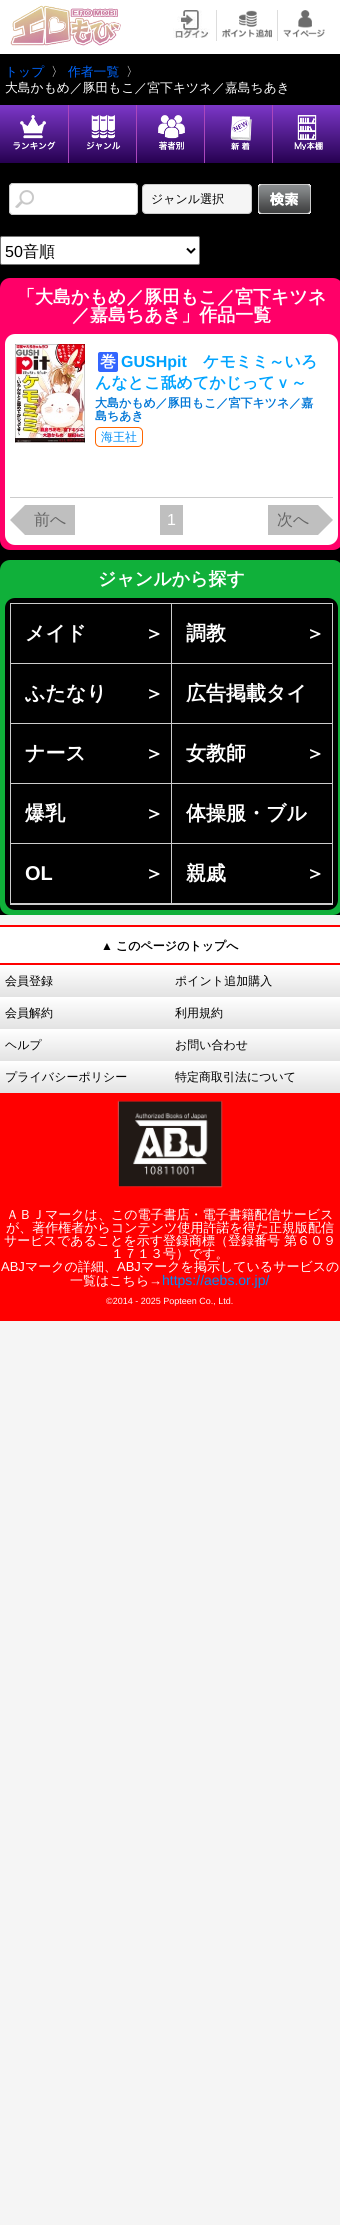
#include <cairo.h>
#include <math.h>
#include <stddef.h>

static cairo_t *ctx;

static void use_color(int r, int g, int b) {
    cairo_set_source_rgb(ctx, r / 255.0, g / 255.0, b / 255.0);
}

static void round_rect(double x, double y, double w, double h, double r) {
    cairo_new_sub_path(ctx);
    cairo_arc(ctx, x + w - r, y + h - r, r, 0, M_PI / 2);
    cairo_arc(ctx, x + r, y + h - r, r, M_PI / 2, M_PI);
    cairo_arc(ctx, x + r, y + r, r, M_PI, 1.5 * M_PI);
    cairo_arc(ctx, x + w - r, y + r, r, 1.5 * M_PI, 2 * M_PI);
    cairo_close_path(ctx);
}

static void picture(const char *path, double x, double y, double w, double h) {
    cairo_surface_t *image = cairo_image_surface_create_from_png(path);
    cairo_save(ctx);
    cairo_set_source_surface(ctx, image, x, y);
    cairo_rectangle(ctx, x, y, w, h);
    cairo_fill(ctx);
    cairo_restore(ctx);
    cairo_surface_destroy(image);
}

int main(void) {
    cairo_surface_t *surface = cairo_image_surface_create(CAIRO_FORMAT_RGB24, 340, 2225);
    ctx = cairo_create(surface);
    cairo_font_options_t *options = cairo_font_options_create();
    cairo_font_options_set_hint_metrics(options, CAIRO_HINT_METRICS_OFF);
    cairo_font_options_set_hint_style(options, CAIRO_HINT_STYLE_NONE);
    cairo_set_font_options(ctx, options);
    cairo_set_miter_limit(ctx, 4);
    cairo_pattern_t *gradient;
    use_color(245, 245, 245);
    cairo_paint(ctx);
    use_color(255, 255, 255);
    cairo_rectangle(ctx, 0, 0, 340, 54);
    cairo_fill(ctx);
    picture("img1.png", 10, 5, 111, 41);
    picture("img2.png", 173, 10, 37, 28);
    use_color(221, 221, 221);
    cairo_rectangle(ctx, 216, 10, 1, 31);
    cairo_fill(ctx);
    picture("img3.png", 222, 10, 50, 28);
    cairo_rectangle(ctx, 277, 10, 1, 31);
    cairo_fill(ctx);
    picture("img4.png", 283, 10, 42, 28);
    use_color(0, 0, 0);
    cairo_rectangle(ctx, 0, 54, 340, 861);
    cairo_fill(ctx);
    cairo_select_font_face(ctx, "WenQuanYi Zen Hei Medium", CAIRO_FONT_SLANT_NORMAL, CAIRO_FONT_WEIGHT_NORMAL);
    cairo_set_font_size(ctx, 12.8);
    use_color(0, 102, 255);
    cairo_move_to(ctx, 5, 76);
    cairo_show_text(ctx, "トップ");
    use_color(255, 255, 255);
    cairo_move_to(ctx, 51, 76);
    cairo_show_text(ctx, "〉");
    use_color(0, 102, 255);
    cairo_move_to(ctx, 68, 76);
    cairo_show_text(ctx, "作者一覧");
    use_color(255, 255, 255);
    cairo_move_to(ctx, 126, 76);
    cairo_show_text(ctx, "〉");
    cairo_move_to(ctx, 5, 92);
    cairo_show_text(ctx, "大島かもめ／豚田もこ／宮下キツネ／嘉島ちあき");
    gradient = cairo_pattern_create_linear(170, 105, 170, 163);
    cairo_pattern_add_color_stop_rgba(gradient, 0, 0.486, 0.216, 0.784, 1);
    cairo_pattern_add_color_stop_rgba(gradient, 1, 0.149, 0.004, 0.318, 1);
    cairo_set_source(ctx, gradient);
    cairo_pattern_destroy(gradient);
    cairo_rectangle(ctx, 0, 105, 340, 58);
    cairo_fill(ctx);
    picture("img5.png", 13, 115, 43, 35);
    use_color(171, 71, 188);
    cairo_rectangle(ctx, 68, 105, 1, 58);
    cairo_fill(ctx);
    picture("img6.png", 86, 115, 35, 35);
    cairo_rectangle(ctx, 136, 105, 1, 58);
    cairo_fill(ctx);
    picture("img7.png", 158, 115, 27, 35);
    cairo_rectangle(ctx, 204, 105, 1, 58);
    cairo_fill(ctx);
    picture("img8.png", 230, 116, 22, 34);
    cairo_rectangle(ctx, 272, 105, 1, 58);
    cairo_fill(ctx);
    picture("img9.png", 294, 115, 29, 35);
    use_color(255, 255, 255);
    round_rect(9, 183, 129, 32, 4);
    cairo_fill(ctx);
    picture("img10.png", 15, 190, 19, 18);
    round_rect(9.5, 183.5, 128, 31, 3.5);
    use_color(202, 202, 202);
    cairo_set_line_width(ctx, 1);
    cairo_stroke(ctx);
    use_color(245, 245, 245);
    round_rect(142.5, 184.5, 109, 29, 3.5);
    cairo_fill_preserve(ctx);
    use_color(202, 202, 202);
    cairo_stroke(ctx);
    cairo_set_font_size(ctx, 12);
    use_color(0, 0, 0);
    cairo_move_to(ctx, 151, 203);
    cairo_show_text(ctx, "ジャンル選択");
    picture("img11.png", 258, 184, 53, 30);
    use_color(255, 255, 255);
    round_rect(0.5, 236.5, 199, 28, 1.5);
    cairo_fill_preserve(ctx);
    use_color(118, 118, 118);
    cairo_stroke(ctx);
    cairo_new_path(ctx);
    cairo_move_to(ctx, 187, 248.5);
    cairo_line_to(ctx, 191, 252.5);
    cairo_line_to(ctx, 195, 248.5);
    use_color(0, 0, 0);
    cairo_set_line_width(ctx, 2);
    cairo_stroke(ctx);
    cairo_select_font_face(ctx, "Liberation Sans", CAIRO_FONT_SLANT_NORMAL, CAIRO_FONT_WEIGHT_NORMAL);
    cairo_set_font_size(ctx, 16);
    cairo_move_to(ctx, 5, 257);
    cairo_show_text(ctx, "50");
    cairo_select_font_face(ctx, "WenQuanYi Zen Hei Medium", CAIRO_FONT_SLANT_NORMAL, CAIRO_FONT_WEIGHT_NORMAL);
    cairo_move_to(ctx, 23, 257);
    cairo_show_text(ctx, "音順");
    use_color(255, 0, 104);
    round_rect(0, 278, 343, 272, 10);
    cairo_fill(ctx);
    cairo_select_font_face(ctx, "WenQuanYi Zen Hei", CAIRO_FONT_SLANT_NORMAL, CAIRO_FONT_WEIGHT_BOLD);
    cairo_set_font_size(ctx, 18);
    use_color(255, 255, 255);
    cairo_move_to(ctx, 17, 303);
    cairo_show_text(ctx, "「大島かもめ／豚田もこ／宮下キツネ");
    cairo_move_to(ctx, 72, 321);
    cairo_show_text(ctx, "／嘉島ちあき」作品一覧");
    round_rect(5, 334, 333, 211, 10);
    cairo_fill(ctx);
    use_color(204, 204, 204);
    cairo_rectangle(ctx, 10, 497, 323, 1);
    cairo_fill(ctx);
    picture("img12.png", 15, 344, 70, 99);
    use_color(51, 102, 255);
    round_rect(98, 352, 20, 20, 2);
    cairo_fill(ctx);
    cairo_set_font_size(ctx, 16);
    use_color(255, 255, 255);
    cairo_move_to(ctx, 100, 367);
    cairo_show_text(ctx, "巻");
    cairo_select_font_face(ctx, "Liberation Sans", CAIRO_FONT_SLANT_NORMAL, CAIRO_FONT_WEIGHT_BOLD);
    use_color(0, 163, 255);
    cairo_move_to(ctx, 121, 367);
    cairo_show_text(ctx, "GUSHpit");
    cairo_select_font_face(ctx, "WenQuanYi Zen Hei", CAIRO_FONT_SLANT_NORMAL, CAIRO_FONT_WEIGHT_BOLD);
    cairo_move_to(ctx, 203, 367);
    cairo_show_text(ctx, "ケモミミ～いろ");
    cairo_move_to(ctx, 95, 388);
    cairo_show_text(ctx, "んなとこ舐めてかじってｖ～");
    cairo_set_font_size(ctx, 12);
    use_color(0, 118, 214);
    cairo_move_to(ctx, 95, 407);
    cairo_show_text(ctx, "大島かもめ／豚田もこ／宮下キツネ／嘉");
    cairo_move_to(ctx, 95, 420);
    cairo_show_text(ctx, "島ちあき");
    round_rect(95.5, 427.5, 47, 19, 4.5);
    use_color(255, 102, 0);
    cairo_set_line_width(ctx, 1);
    cairo_stroke(ctx);
    cairo_select_font_face(ctx, "WenQuanYi Zen Hei Medium", CAIRO_FONT_SLANT_NORMAL, CAIRO_FONT_WEIGHT_NORMAL);
    use_color(0, 141, 246);
    cairo_move_to(ctx, 101, 441);
    cairo_show_text(ctx, "海王社");
    use_color(191, 191, 191);
    cairo_rectangle(ctx, 25, 505, 50, 30);
    cairo_fill(ctx);
    cairo_new_path(ctx);
    cairo_move_to(ctx, 25, 505);
    cairo_line_to(ctx, 25, 535);
    cairo_line_to(ctx, 10, 520);
    cairo_close_path(ctx);
    cairo_fill(ctx);
    cairo_set_font_size(ctx, 16);
    use_color(102, 102, 102);
    cairo_move_to(ctx, 34, 525);
    cairo_show_text(ctx, "前へ");
    use_color(191, 191, 191);
    cairo_rectangle(ctx, 160, 505, 23, 30);
    cairo_fill(ctx);
    cairo_select_font_face(ctx, "Liberation Sans", CAIRO_FONT_SLANT_NORMAL, CAIRO_FONT_WEIGHT_NORMAL);
    use_color(255, 255, 255);
    cairo_move_to(ctx, 167, 525);
    cairo_show_text(ctx, "1");
    use_color(191, 191, 191);
    cairo_rectangle(ctx, 268, 505, 50, 30);
    cairo_fill(ctx);
    cairo_select_font_face(ctx, "WenQuanYi Zen Hei Medium", CAIRO_FONT_SLANT_NORMAL, CAIRO_FONT_WEIGHT_NORMAL);
    use_color(102, 102, 102);
    cairo_move_to(ctx, 277, 525);
    cairo_show_text(ctx, "次へ");
    use_color(191, 191, 191);
    cairo_new_path(ctx);
    cairo_move_to(ctx, 318, 535);
    cairo_line_to(ctx, 318, 505);
    cairo_line_to(ctx, 333, 520);
    cairo_close_path(ctx);
    cairo_fill(ctx);
    use_color(16, 176, 58);
    round_rect(0, 560, 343, 355, 10);
    cairo_fill(ctx);
    cairo_select_font_face(ctx, "WenQuanYi Zen Hei", CAIRO_FONT_SLANT_NORMAL, CAIRO_FONT_WEIGHT_BOLD);
    cairo_set_font_size(ctx, 18);
    use_color(255, 255, 255);
    cairo_move_to(ctx, 98, 585);
    cairo_show_text(ctx, "ジャンルから探す");
    use_color(0, 0, 0);
    round_rect(5, 598, 333, 312, 10);
    cairo_fill(ctx);
    use_color(204, 204, 204);
    cairo_rectangle(ctx, 171, 603, 162, 1);
    cairo_fill(ctx);
    cairo_rectangle(ctx, 171, 663, 162, 1);
    cairo_fill(ctx);
    cairo_rectangle(ctx, 171, 723, 162, 1);
    cairo_fill(ctx);
    cairo_rectangle(ctx, 171, 783, 162, 1);
    cairo_fill(ctx);
    cairo_rectangle(ctx, 171, 843, 162, 1);
    cairo_fill(ctx);
    cairo_rectangle(ctx, 171, 903, 162, 2);
    cairo_fill(ctx);
    cairo_rectangle(ctx, 10, 903, 162, 2);
    cairo_fill(ctx);
    cairo_rectangle(ctx, 171, 843, 1, 61);
    cairo_fill(ctx);
    cairo_rectangle(ctx, 10, 843, 162, 1);
    cairo_fill(ctx);
    cairo_rectangle(ctx, 171, 783, 1, 61);
    cairo_fill(ctx);
    cairo_rectangle(ctx, 10, 783, 162, 1);
    cairo_fill(ctx);
    cairo_rectangle(ctx, 171, 723, 1, 61);
    cairo_fill(ctx);
    cairo_rectangle(ctx, 10, 723, 162, 1);
    cairo_fill(ctx);
    cairo_rectangle(ctx, 171, 663, 1, 61);
    cairo_fill(ctx);
    cairo_rectangle(ctx, 10, 663, 162, 1);
    cairo_fill(ctx);
    cairo_rectangle(ctx, 171, 603, 1, 61);
    cairo_fill(ctx);
    cairo_rectangle(ctx, 10, 603, 162, 1);
    cairo_fill(ctx);
    cairo_rectangle(ctx, 10, 843, 1, 61);
    cairo_fill(ctx);
    cairo_rectangle(ctx, 10, 783, 1, 61);
    cairo_fill(ctx);
    cairo_rectangle(ctx, 10, 723, 1, 61);
    cairo_fill(ctx);
    cairo_rectangle(ctx, 10, 663, 1, 61);
    cairo_fill(ctx);
    cairo_rectangle(ctx, 10, 603, 1, 61);
    cairo_fill(ctx);
    cairo_set_font_size(ctx, 20);
    use_color(255, 255, 255);
    cairo_move_to(ctx, 25, 640);
    cairo_show_text(ctx, "メイド");
    cairo_move_to(ctx, 144, 640);
    cairo_show_text(ctx, "＞");
    use_color(204, 204, 204);
    cairo_rectangle(ctx, 332, 843, 1, 61);
    cairo_fill(ctx);
    cairo_rectangle(ctx, 332, 783, 1, 61);
    cairo_fill(ctx);
    cairo_rectangle(ctx, 332, 723, 1, 61);
    cairo_fill(ctx);
    cairo_rectangle(ctx, 332, 663, 1, 61);
    cairo_fill(ctx);
    cairo_rectangle(ctx, 332, 603, 1, 61);
    cairo_fill(ctx);
    use_color(255, 255, 255);
    cairo_move_to(ctx, 186, 640);
    cairo_show_text(ctx, "調教");
    cairo_move_to(ctx, 305, 640);
    cairo_show_text(ctx, "＞");
    cairo_move_to(ctx, 25, 700);
    cairo_show_text(ctx, "ふたなり");
    cairo_move_to(ctx, 144, 700);
    cairo_show_text(ctx, "＞");
    cairo_move_to(ctx, 186, 700);
    cairo_show_text(ctx, "広告掲載タイ");
    cairo_move_to(ctx, 25, 760);
    cairo_show_text(ctx, "ナース");
    cairo_move_to(ctx, 144, 760);
    cairo_show_text(ctx, "＞");
    cairo_move_to(ctx, 186, 760);
    cairo_show_text(ctx, "女教師");
    cairo_move_to(ctx, 305, 760);
    cairo_show_text(ctx, "＞");
    cairo_move_to(ctx, 25, 820);
    cairo_show_text(ctx, "爆乳");
    cairo_move_to(ctx, 144, 820);
    cairo_show_text(ctx, "＞");
    cairo_move_to(ctx, 186, 820);
    cairo_show_text(ctx, "体操服・ブル");
    cairo_select_font_face(ctx, "Liberation Sans", CAIRO_FONT_SLANT_NORMAL, CAIRO_FONT_WEIGHT_BOLD);
    cairo_move_to(ctx, 25, 880);
    cairo_show_text(ctx, "OL");
    cairo_select_font_face(ctx, "WenQuanYi Zen Hei", CAIRO_FONT_SLANT_NORMAL, CAIRO_FONT_WEIGHT_BOLD);
    cairo_move_to(ctx, 144, 880);
    cairo_show_text(ctx, "＞");
    cairo_move_to(ctx, 186, 880);
    cairo_show_text(ctx, "親戚");
    cairo_move_to(ctx, 305, 880);
    cairo_show_text(ctx, "＞");
    cairo_rectangle(ctx, 0, 927, 340, 36);
    cairo_fill(ctx);
    use_color(255, 0, 0);
    cairo_rectangle(ctx, 0, 925, 340, 2);
    cairo_fill(ctx);
    cairo_rectangle(ctx, 0, 963, 340, 2);
    cairo_fill(ctx);
    cairo_select_font_face(ctx, "Liberation Sans", CAIRO_FONT_SLANT_NORMAL, CAIRO_FONT_WEIGHT_BOLD);
    cairo_set_font_size(ctx, 12);
    use_color(0, 0, 0);
    cairo_move_to(ctx, 101, 950);
    cairo_show_text(ctx, "▲");
    cairo_select_font_face(ctx, "WenQuanYi Zen Hei", CAIRO_FONT_SLANT_NORMAL, CAIRO_FONT_WEIGHT_BOLD);
    cairo_move_to(ctx, 116, 950);
    cairo_show_text(ctx, "このページのトップへ");
    use_color(255, 0, 0);
    cairo_rectangle(ctx, 0, 1093, 340, 228);
    cairo_fill(ctx);
    gradient = cairo_pattern_create_linear(85, 965, 85, 997);
    cairo_pattern_add_color_stop_rgba(gradient, 0, 1, 1, 1, 1);
    cairo_pattern_add_color_stop_rgba(gradient, 0.99, 0.89, 0.89, 0.89, 1);
    cairo_set_source(ctx, gradient);
    cairo_pattern_destroy(gradient);
    cairo_rectangle(ctx, 0, 965, 170, 32);
    cairo_fill(ctx);
    cairo_select_font_face(ctx, "WenQuanYi Zen Hei Medium", CAIRO_FONT_SLANT_NORMAL, CAIRO_FONT_WEIGHT_NORMAL);
    use_color(0, 0, 0);
    cairo_move_to(ctx, 5, 985);
    cairo_show_text(ctx, "会員登録");
    gradient = cairo_pattern_create_linear(255, 965, 255, 997);
    cairo_pattern_add_color_stop_rgba(gradient, 0, 1, 1, 1, 1);
    cairo_pattern_add_color_stop_rgba(gradient, 0.99, 0.89, 0.89, 0.89, 1);
    cairo_set_source(ctx, gradient);
    cairo_pattern_destroy(gradient);
    cairo_rectangle(ctx, 170, 965, 170, 32);
    cairo_fill(ctx);
    use_color(0, 0, 0);
    cairo_move_to(ctx, 175, 985);
    cairo_show_text(ctx, "ポイント追加購入");
    gradient = cairo_pattern_create_linear(85, 997, 85, 1029);
    cairo_pattern_add_color_stop_rgba(gradient, 0, 1, 1, 1, 1);
    cairo_pattern_add_color_stop_rgba(gradient, 0.99, 0.89, 0.89, 0.89, 1);
    cairo_set_source(ctx, gradient);
    cairo_pattern_destroy(gradient);
    cairo_rectangle(ctx, 0, 997, 170, 32);
    cairo_fill(ctx);
    use_color(0, 0, 0);
    cairo_move_to(ctx, 5, 1017);
    cairo_show_text(ctx, "会員解約");
    gradient = cairo_pattern_create_linear(255, 997, 255, 1029);
    cairo_pattern_add_color_stop_rgba(gradient, 0, 1, 1, 1, 1);
    cairo_pattern_add_color_stop_rgba(gradient, 0.99, 0.89, 0.89, 0.89, 1);
    cairo_set_source(ctx, gradient);
    cairo_pattern_destroy(gradient);
    cairo_rectangle(ctx, 170, 997, 170, 32);
    cairo_fill(ctx);
    use_color(0, 0, 0);
    cairo_move_to(ctx, 175, 1017);
    cairo_show_text(ctx, "利用規約");
    gradient = cairo_pattern_create_linear(85, 1029, 85, 1061);
    cairo_pattern_add_color_stop_rgba(gradient, 0, 1, 1, 1, 1);
    cairo_pattern_add_color_stop_rgba(gradient, 0.99, 0.89, 0.89, 0.89, 1);
    cairo_set_source(ctx, gradient);
    cairo_pattern_destroy(gradient);
    cairo_rectangle(ctx, 0, 1029, 170, 32);
    cairo_fill(ctx);
    use_color(0, 0, 0);
    cairo_move_to(ctx, 5, 1049);
    cairo_show_text(ctx, "ヘルプ");
    gradient = cairo_pattern_create_linear(255, 1029, 255, 1061);
    cairo_pattern_add_color_stop_rgba(gradient, 0, 1, 1, 1, 1);
    cairo_pattern_add_color_stop_rgba(gradient, 0.99, 0.89, 0.89, 0.89, 1);
    cairo_set_source(ctx, gradient);
    cairo_pattern_destroy(gradient);
    cairo_rectangle(ctx, 170, 1029, 170, 32);
    cairo_fill(ctx);
    use_color(0, 0, 0);
    cairo_move_to(ctx, 175, 1049);
    cairo_show_text(ctx, "お問い合わせ");
    gradient = cairo_pattern_create_linear(85, 1061, 85, 1093);
    cairo_pattern_add_color_stop_rgba(gradient, 0, 1, 1, 1, 1);
    cairo_pattern_add_color_stop_rgba(gradient, 0.99, 0.89, 0.89, 0.89, 1);
    cairo_set_source(ctx, gradient);
    cairo_pattern_destroy(gradient);
    cairo_rectangle(ctx, 0, 1061, 170, 32);
    cairo_fill(ctx);
    use_color(0, 0, 0);
    cairo_move_to(ctx, 5, 1081);
    cairo_show_text(ctx, "プライバシーポリシー");
    gradient = cairo_pattern_create_linear(255, 1061, 255, 1093);
    cairo_pattern_add_color_stop_rgba(gradient, 0, 1, 1, 1, 1);
    cairo_pattern_add_color_stop_rgba(gradient, 0.99, 0.89, 0.89, 0.89, 1);
    cairo_set_source(ctx, gradient);
    cairo_pattern_destroy(gradient);
    cairo_rectangle(ctx, 170, 1061, 170, 32);
    cairo_fill(ctx);
    use_color(0, 0, 0);
    cairo_move_to(ctx, 175, 1081);
    cairo_show_text(ctx, "特定商取引法について");
    picture("img13.png", 117, 1100, 106, 88);
    cairo_set_font_size(ctx, 13);
    use_color(255, 255, 255);
    cairo_move_to(ctx, 6, 1219);
    cairo_show_text(ctx, "ＡＢＪマークは、この電子書店・電子書籍配信サービス");
    cairo_move_to(ctx, 6, 1232);
    cairo_show_text(ctx, "が、著作権者からコンテンツ使用許諾を得た正規版配信");
    cairo_move_to(ctx, 4, 1245);
    cairo_show_text(ctx, "サービスであることを示す登録商標（登録番号 第６０９");
    cairo_move_to(ctx, 111, 1258);
    cairo_show_text(ctx, "１７１３号）です。");
    cairo_select_font_face(ctx, "Liberation Sans", CAIRO_FONT_SLANT_NORMAL, CAIRO_FONT_WEIGHT_NORMAL);
    cairo_move_to(ctx, 1, 1271);
    cairo_show_text(ctx, "ABJ");
    cairo_select_font_face(ctx, "WenQuanYi Zen Hei Medium", CAIRO_FONT_SLANT_NORMAL, CAIRO_FONT_WEIGHT_NORMAL);
    cairo_move_to(ctx, 25, 1271);
    cairo_show_text(ctx, "マークの詳細、");
    cairo_select_font_face(ctx, "Liberation Sans", CAIRO_FONT_SLANT_NORMAL, CAIRO_FONT_WEIGHT_NORMAL);
    cairo_move_to(ctx, 117, 1271);
    cairo_show_text(ctx, "ABJ");
    cairo_select_font_face(ctx, "WenQuanYi Zen Hei Medium", CAIRO_FONT_SLANT_NORMAL, CAIRO_FONT_WEIGHT_NORMAL);
    cairo_move_to(ctx, 141, 1271);
    cairo_show_text(ctx, "マークを掲示しているサービスの");
    cairo_move_to(ctx, 70, 1285);
    cairo_show_text(ctx, "一覧はこちら");
    cairo_select_font_face(ctx, "Liberation Sans", CAIRO_FONT_SLANT_NORMAL, CAIRO_FONT_WEIGHT_NORMAL);
    cairo_move_to(ctx, 149, 1285);
    cairo_show_text(ctx, "→");
    cairo_set_font_size(ctx, 14);
    use_color(0, 141, 246);
    cairo_move_to(ctx, 162, 1285);
    cairo_show_text(ctx, "https://aebs.or.jp/");
    cairo_set_font_size(ctx, 9);
    use_color(255, 255, 255);
    cairo_move_to(ctx, 106, 1304);
    cairo_show_text(ctx, "©2014 - 2025 Popteen Co., Ltd.");
    cairo_surface_write_to_png(surface, "result.png");
    cairo_font_options_destroy(options);
    cairo_destroy(ctx);
    cairo_surface_destroy(surface);
    return 0;
}
